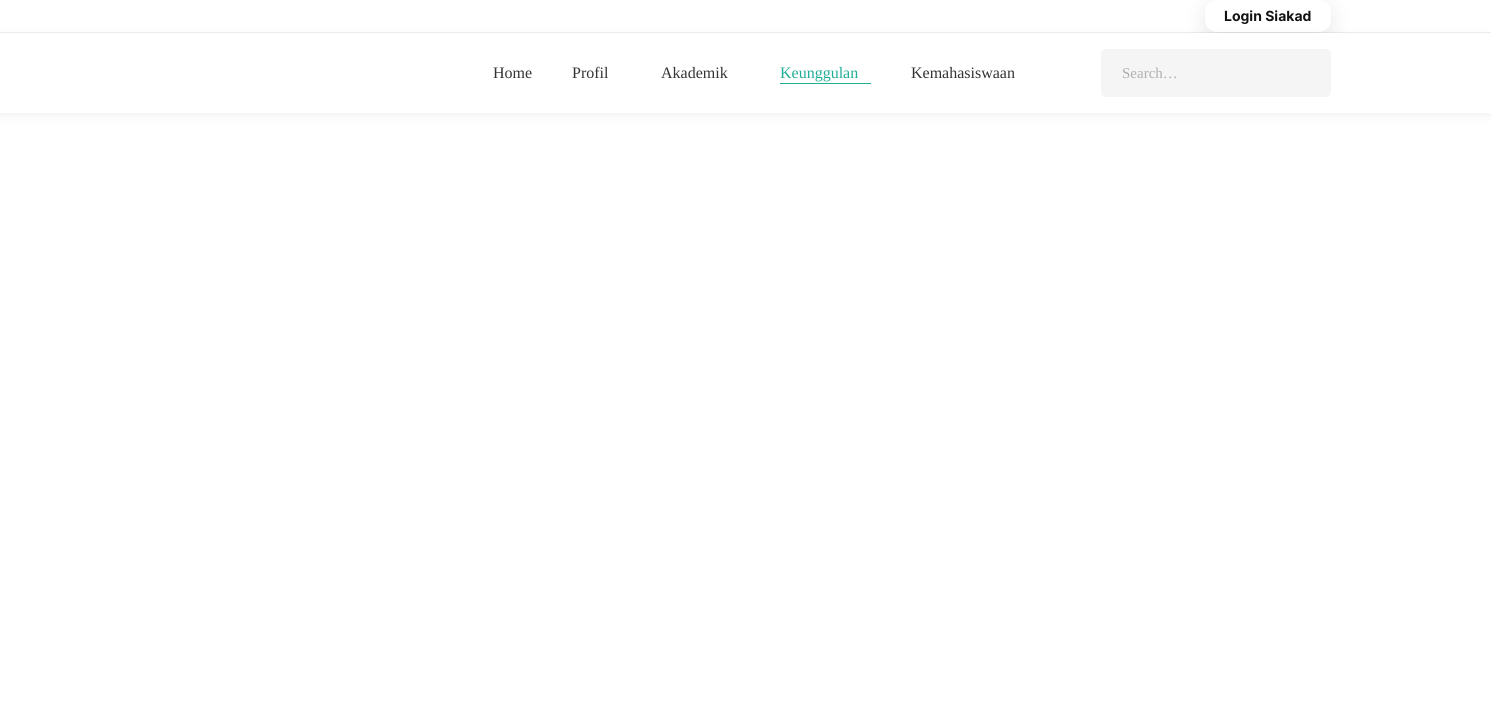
#include <cairo.h>
#include <math.h>
#include <stddef.h>

static cairo_t *ctx;

static void use_color(int r, int g, int b) {
    cairo_set_source_rgb(ctx, r / 255.0, g / 255.0, b / 255.0);
}

static void round_rect(double x, double y, double w, double h, double r) {
    cairo_new_sub_path(ctx);
    cairo_arc(ctx, x + w - r, y + h - r, r, 0, M_PI / 2);
    cairo_arc(ctx, x + r, y + h - r, r, M_PI / 2, M_PI);
    cairo_arc(ctx, x + r, y + r, r, M_PI, 1.5 * M_PI);
    cairo_arc(ctx, x + w - r, y + r, r, 1.5 * M_PI, 2 * M_PI);
    cairo_close_path(ctx);
}

static void shadow(double x, double y, double w, double h, double r, double blur, double alpha) {
    cairo_push_group_with_content(ctx, CAIRO_CONTENT_ALPHA);
    cairo_set_operator(ctx, CAIRO_OPERATOR_SOURCE);
    for (int i = 15; i >= -15 && fmin(w, h) + blur * i / 3 > 0; i -= 2) {
        double e = blur * i / 6;
        cairo_set_source_rgba(ctx, 0, 0, 0, alpha * erfc((i - 1) / 8.5) / 2);
        round_rect(x - e, y - e, w + 2 * e, h + 2 * e, fmax(0, fmin(r + e + blur * .6, fmin(w, h) / 2 + e)));
        cairo_fill(ctx);
    }
    cairo_pattern_t *soft = cairo_pop_group(ctx);
    cairo_mask(ctx, soft);
    cairo_pattern_destroy(soft);
}

int main(void) {
    cairo_surface_t *surface = cairo_image_surface_create(CAIRO_FORMAT_RGB24, 1491, 706);
    ctx = cairo_create(surface);
    cairo_font_options_t *options = cairo_font_options_create();
    cairo_font_options_set_hint_metrics(options, CAIRO_HINT_METRICS_OFF);
    cairo_font_options_set_hint_style(options, CAIRO_HINT_STYLE_NONE);
    cairo_set_font_options(ctx, options);
    cairo_set_miter_limit(ctx, 4);
    use_color(255, 255, 255);
    cairo_paint(ctx);
    use_color(238, 238, 238);
    cairo_rectangle(ctx, 0, 32, 1491, 1);
    cairo_fill(ctx);
    use_color(18, 18, 18);
    shadow(1205, 6, 126, 32, 12, 10, 0.1);
    use_color(255, 255, 255);
    round_rect(1205, 0, 126, 32, 12);
    cairo_fill(ctx);
    cairo_select_font_face(ctx, "Inter", CAIRO_FONT_SLANT_NORMAL, CAIRO_FONT_WEIGHT_BOLD);
    cairo_set_font_size(ctx, 14);
    use_color(18, 18, 18);
    cairo_move_to(ctx, 1224, 21);
    cairo_show_text(ctx, "Login Siakad");
    use_color(0, 0, 0);
    shadow(0, 36, 1491, 80, 0, 4.5, 0.05);
    use_color(255, 255, 255);
    cairo_rectangle(ctx, 0, 33, 1491, 80);
    cairo_fill(ctx);
    cairo_select_font_face(ctx, "Liberation Serif", CAIRO_FONT_SLANT_NORMAL, CAIRO_FONT_WEIGHT_NORMAL);
    cairo_set_font_size(ctx, 16);
    use_color(51, 51, 51);
    cairo_move_to(ctx, 493, 78);
    cairo_show_text(ctx, "Home");
    cairo_move_to(ctx, 572, 78);
    cairo_show_text(ctx, "Profil");
    cairo_move_to(ctx, 661, 78);
    cairo_show_text(ctx, "Akademik");
    use_color(32, 173, 150);
    cairo_move_to(ctx, 780, 78);
    cairo_show_text(ctx, "Keunggulan");
    cairo_rectangle(ctx, 780, 83, 91, 1);
    cairo_fill(ctx);
    use_color(51, 51, 51);
    cairo_move_to(ctx, 911, 78);
    cairo_show_text(ctx, "Kemahasiswaan");
    use_color(245, 245, 245);
    round_rect(1101, 49, 230, 48, 5);
    cairo_fill(ctx);
    cairo_set_font_size(ctx, 15);
    use_color(175, 175, 175);
    cairo_move_to(ctx, 1122, 78);
    cairo_show_text(ctx, "Search…");
    cairo_surface_write_to_png(surface, "result.png");
    cairo_font_options_destroy(options);
    cairo_destroy(ctx);
    cairo_surface_destroy(surface);
    return 0;
}
